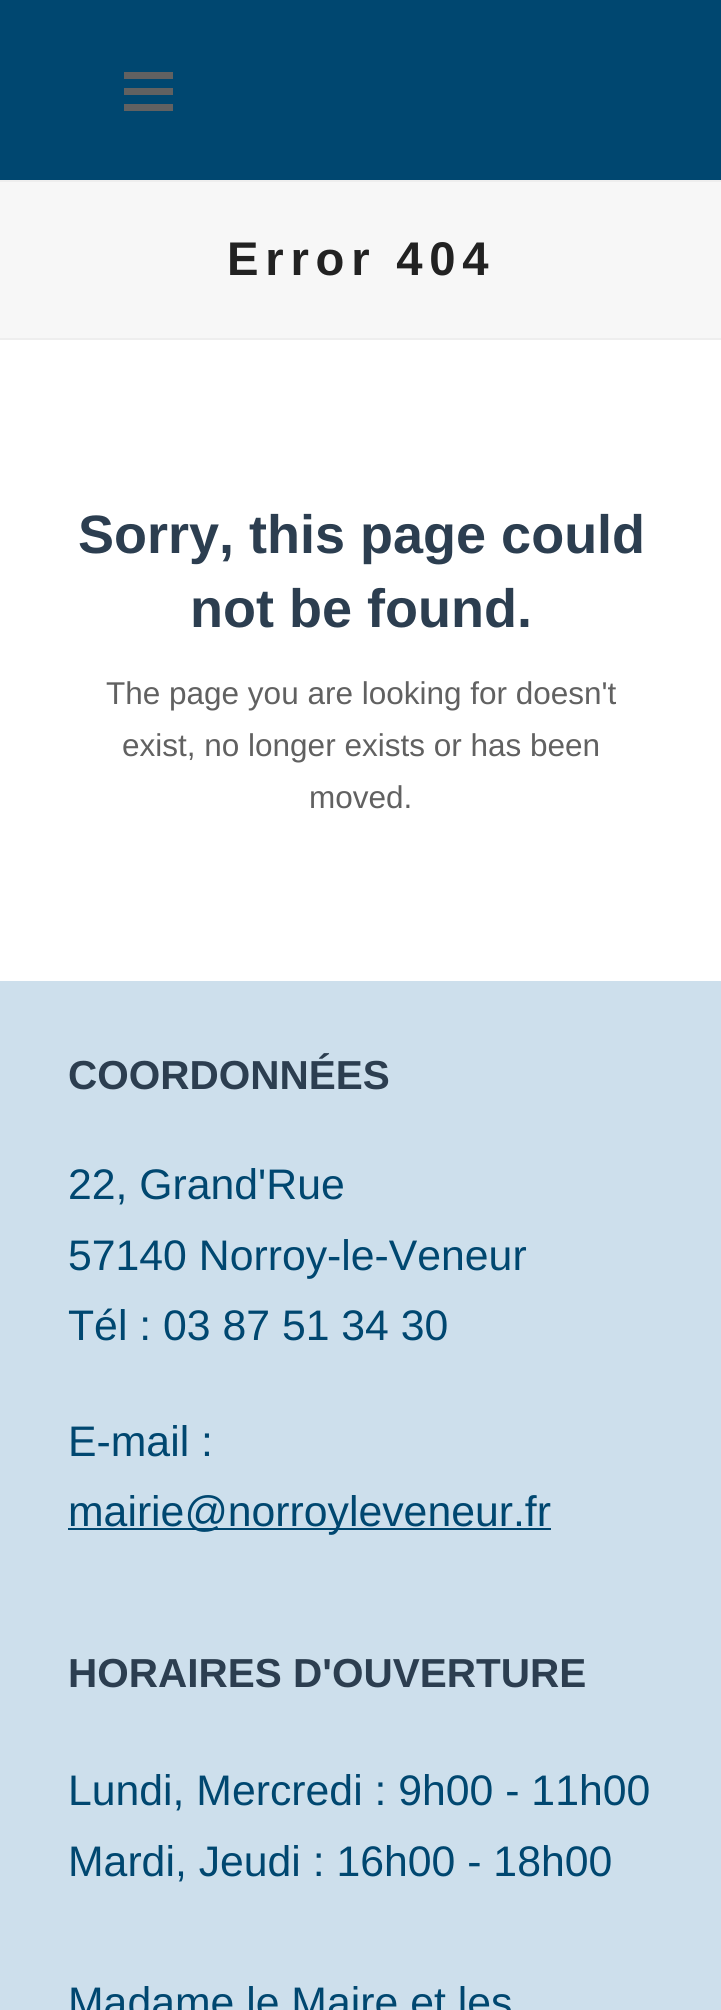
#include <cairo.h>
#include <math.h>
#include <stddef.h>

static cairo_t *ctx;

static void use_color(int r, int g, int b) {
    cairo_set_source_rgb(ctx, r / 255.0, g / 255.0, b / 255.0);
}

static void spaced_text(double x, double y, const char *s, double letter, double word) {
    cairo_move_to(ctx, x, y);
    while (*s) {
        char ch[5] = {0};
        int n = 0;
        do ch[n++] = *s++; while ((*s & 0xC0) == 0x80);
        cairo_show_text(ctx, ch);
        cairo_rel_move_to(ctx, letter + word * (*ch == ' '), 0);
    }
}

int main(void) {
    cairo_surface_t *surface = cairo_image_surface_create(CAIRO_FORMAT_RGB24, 721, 2010);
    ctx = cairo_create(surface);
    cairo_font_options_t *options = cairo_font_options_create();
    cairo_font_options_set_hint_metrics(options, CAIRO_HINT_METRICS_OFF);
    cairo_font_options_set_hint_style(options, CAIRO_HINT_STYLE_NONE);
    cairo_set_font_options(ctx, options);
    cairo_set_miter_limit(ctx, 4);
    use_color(255, 255, 255);
    cairo_paint(ctx);
    use_color(0, 71, 112);
    cairo_rectangle(ctx, 0, 0, 721, 180);
    cairo_fill(ctx);
    use_color(97, 97, 97);
    cairo_rectangle(ctx, 124, 88, 49, 7);
    cairo_fill(ctx);
    cairo_rectangle(ctx, 124, 72, 49, 7);
    cairo_fill(ctx);
    cairo_rectangle(ctx, 124, 104, 49, 7);
    cairo_fill(ctx);
    use_color(247, 247, 247);
    cairo_rectangle(ctx, 0, 182, 721, 156);
    cairo_fill(ctx);
    use_color(238, 238, 238);
    cairo_rectangle(ctx, 0, 180, 721, 2);
    cairo_fill(ctx);
    cairo_rectangle(ctx, 0, 338, 721, 2);
    cairo_fill(ctx);
    cairo_select_font_face(ctx, "Liberation Sans", CAIRO_FONT_SLANT_NORMAL, CAIRO_FONT_WEIGHT_BOLD);
    cairo_set_font_size(ctx, 47.25);
    use_color(34, 34, 34);
    spaced_text(227, 275, "Error 404", 6.75, 0);
    cairo_set_font_size(ctx, 54);
    use_color(44, 62, 80);
    cairo_move_to(ctx, 78, 553);
    cairo_show_text(ctx, "Sorry, this page could");
    cairo_move_to(ctx, 190, 627);
    cairo_show_text(ctx, "not be found.");
    cairo_select_font_face(ctx, "Liberation Sans", CAIRO_FONT_SLANT_NORMAL, CAIRO_FONT_WEIGHT_NORMAL);
    cairo_set_font_size(ctx, 31.5);
    use_color(97, 97, 97);
    cairo_move_to(ctx, 106, 704);
    cairo_show_text(ctx, "The page you are looking for doesn't");
    cairo_move_to(ctx, 122, 756);
    cairo_show_text(ctx, "exist, no longer exists or has been");
    cairo_move_to(ctx, 309, 808);
    cairo_show_text(ctx, "moved.");
    use_color(205, 223, 236);
    cairo_rectangle(ctx, 0, 981, 721, 1029);
    cairo_fill(ctx);
    cairo_select_font_face(ctx, "Liberation Sans", CAIRO_FONT_SLANT_NORMAL, CAIRO_FONT_WEIGHT_BOLD);
    cairo_set_font_size(ctx, 40.5);
    use_color(44, 62, 80);
    cairo_move_to(ctx, 68, 1089);
    cairo_show_text(ctx, "COORDONNÉES");
    cairo_select_font_face(ctx, "Liberation Sans", CAIRO_FONT_SLANT_NORMAL, CAIRO_FONT_WEIGHT_NORMAL);
    cairo_set_font_size(ctx, 42.75);
    use_color(0, 71, 112);
    cairo_move_to(ctx, 68, 1199);
    cairo_show_text(ctx, "22, Grand'Rue");
    cairo_move_to(ctx, 68, 1270);
    cairo_show_text(ctx, "57140 Norroy-le-Veneur");
    cairo_move_to(ctx, 68, 1340);
    cairo_show_text(ctx, "Tél : 03 87 51 34 30");
    cairo_move_to(ctx, 68, 1456);
    cairo_show_text(ctx, "E-mail :");
    cairo_rectangle(ctx, 68, 1528, 483, 2);
    cairo_fill(ctx);
    cairo_move_to(ctx, 68, 1526);
    cairo_show_text(ctx, "mairie@norroyleveneur.fr");
    cairo_select_font_face(ctx, "Liberation Sans", CAIRO_FONT_SLANT_NORMAL, CAIRO_FONT_WEIGHT_BOLD);
    cairo_set_font_size(ctx, 40.5);
    use_color(44, 62, 80);
    cairo_move_to(ctx, 68, 1687);
    cairo_show_text(ctx, "HORAIRES D'OUVERTURE");
    cairo_select_font_face(ctx, "Liberation Sans", CAIRO_FONT_SLANT_NORMAL, CAIRO_FONT_WEIGHT_NORMAL);
    cairo_set_font_size(ctx, 42.75);
    use_color(0, 71, 112);
    cairo_move_to(ctx, 68, 1805);
    cairo_show_text(ctx, "Lundi, Mercredi : 9h00 - 11h00");
    cairo_move_to(ctx, 68, 1876);
    cairo_show_text(ctx, "Mardi, Jeudi : 16h00 - 18h00");
    cairo_move_to(ctx, 68, 2017);
    cairo_show_text(ctx, "Madame le Maire et les");
    cairo_surface_write_to_png(surface, "result.png");
    cairo_font_options_destroy(options);
    cairo_destroy(ctx);
    cairo_surface_destroy(surface);
    return 0;
}
